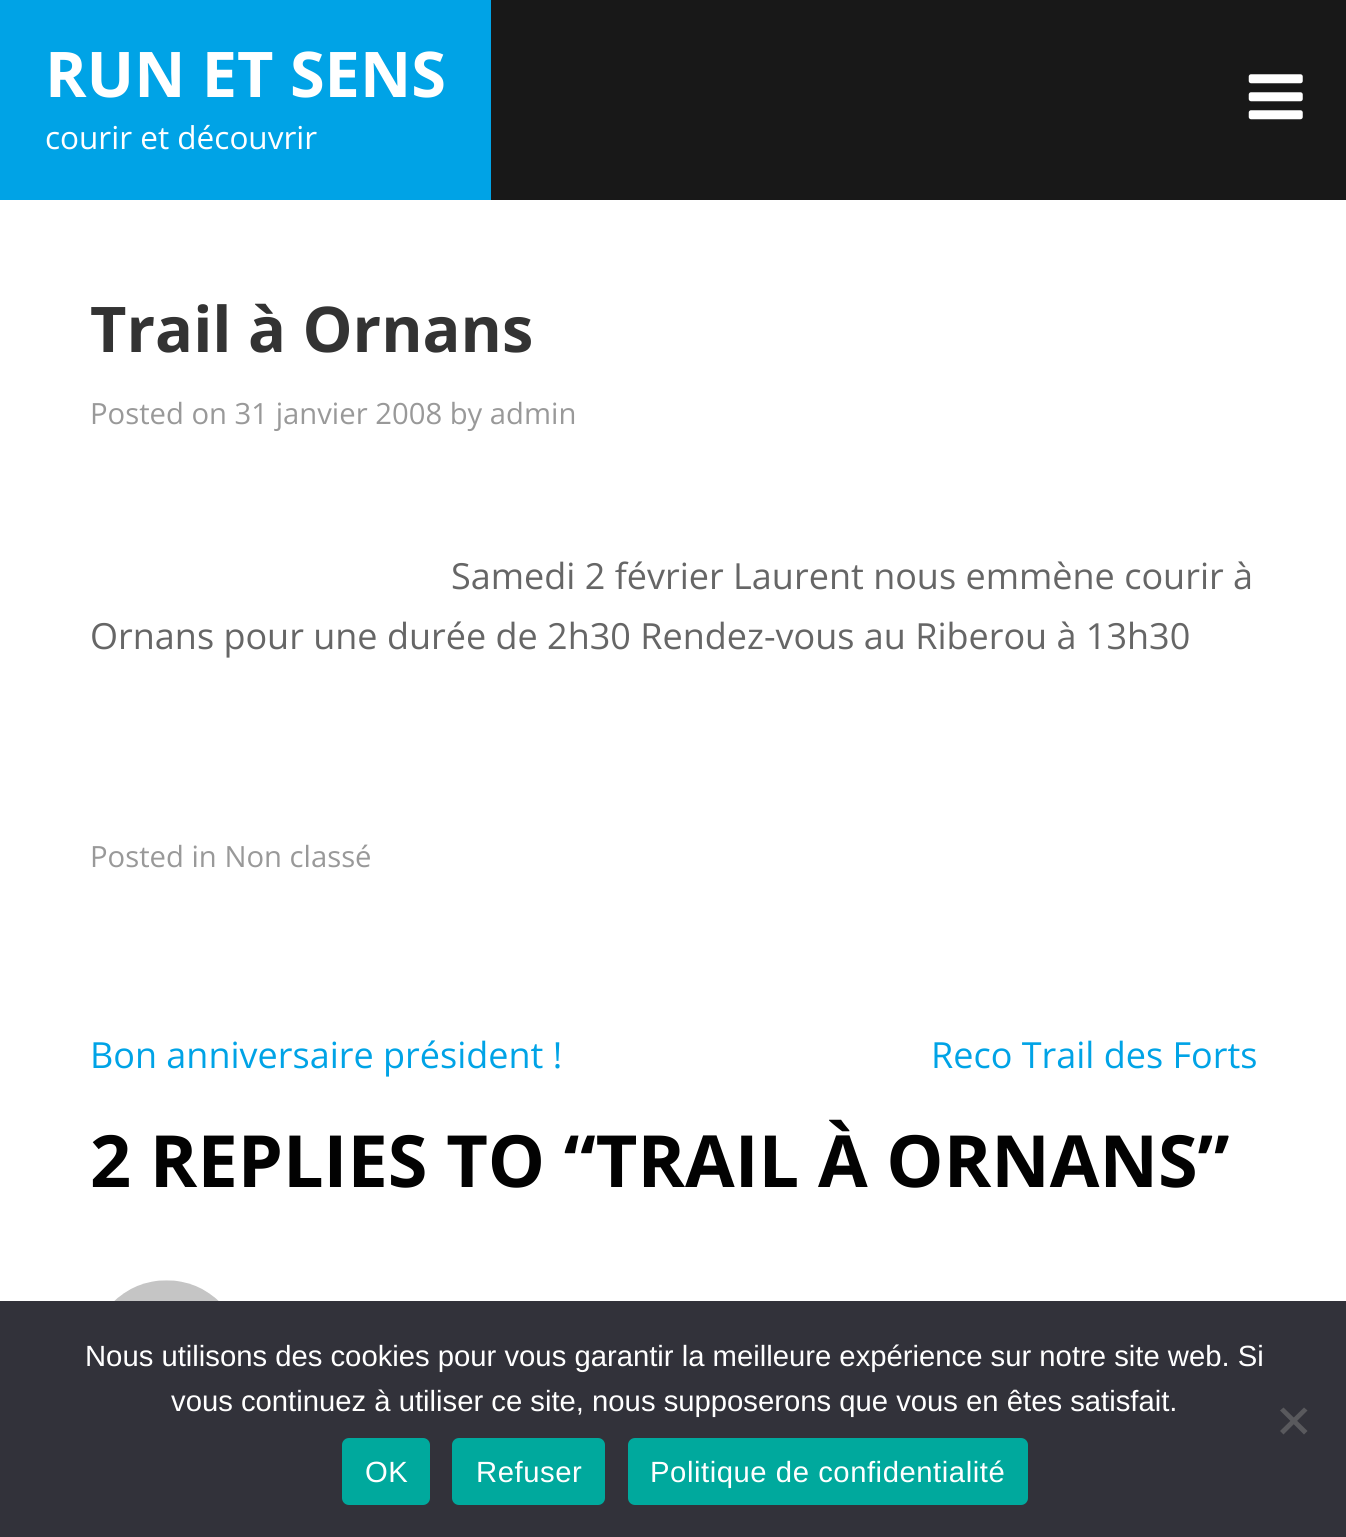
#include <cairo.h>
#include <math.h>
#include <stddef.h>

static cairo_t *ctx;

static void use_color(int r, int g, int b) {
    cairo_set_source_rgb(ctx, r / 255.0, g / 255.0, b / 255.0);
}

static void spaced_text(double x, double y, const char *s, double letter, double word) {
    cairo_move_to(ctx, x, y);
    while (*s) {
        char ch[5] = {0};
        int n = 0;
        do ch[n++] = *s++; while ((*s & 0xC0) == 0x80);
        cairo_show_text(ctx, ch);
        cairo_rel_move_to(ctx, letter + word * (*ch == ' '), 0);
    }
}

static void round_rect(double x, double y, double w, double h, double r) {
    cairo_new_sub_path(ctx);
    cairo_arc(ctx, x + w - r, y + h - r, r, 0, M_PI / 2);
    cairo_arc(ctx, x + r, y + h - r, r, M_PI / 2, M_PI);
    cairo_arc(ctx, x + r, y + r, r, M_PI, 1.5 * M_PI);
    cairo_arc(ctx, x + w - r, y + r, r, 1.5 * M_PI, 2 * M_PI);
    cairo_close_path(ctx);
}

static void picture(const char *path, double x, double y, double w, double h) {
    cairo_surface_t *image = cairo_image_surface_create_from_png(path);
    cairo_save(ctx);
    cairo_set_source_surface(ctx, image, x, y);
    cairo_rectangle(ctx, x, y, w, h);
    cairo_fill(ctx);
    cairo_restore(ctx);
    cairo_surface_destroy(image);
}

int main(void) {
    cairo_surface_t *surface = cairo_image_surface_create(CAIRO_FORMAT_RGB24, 1346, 1537);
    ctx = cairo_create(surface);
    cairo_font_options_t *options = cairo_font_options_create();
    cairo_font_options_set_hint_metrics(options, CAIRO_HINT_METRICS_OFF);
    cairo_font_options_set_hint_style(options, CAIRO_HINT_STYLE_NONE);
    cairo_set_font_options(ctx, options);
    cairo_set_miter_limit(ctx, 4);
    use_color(255, 255, 255);
    cairo_paint(ctx);
    use_color(24, 24, 24);
    cairo_rectangle(ctx, 491, 0, 855, 200);
    cairo_fill(ctx);
    use_color(0, 163, 230);
    cairo_rectangle(ctx, 0, 0, 491, 200);
    cairo_fill(ctx);
    cairo_select_font_face(ctx, "Open Sans", CAIRO_FONT_SLANT_NORMAL, CAIRO_FONT_WEIGHT_BOLD);
    cairo_set_font_size(ctx, 63);
    use_color(255, 255, 255);
    cairo_move_to(ctx, 45, 97);
    cairo_show_text(ctx, "RUN ET SENS");
    cairo_select_font_face(ctx, "Open Sans", CAIRO_FONT_SLANT_NORMAL, CAIRO_FONT_WEIGHT_NORMAL);
    cairo_set_font_size(ctx, 31.5);
    cairo_move_to(ctx, 45, 149);
    cairo_show_text(ctx, "courir et découvrir");
    picture("img1.png", 1248, 74, 55, 46);
    cairo_select_font_face(ctx, "Open Sans", CAIRO_FONT_SLANT_NORMAL, CAIRO_FONT_WEIGHT_BOLD);
    cairo_set_font_size(ctx, 63);
    use_color(51, 51, 51);
    cairo_move_to(ctx, 90, 352);
    cairo_show_text(ctx, "Trail à Ornans");
    cairo_select_font_face(ctx, "Open Sans", CAIRO_FONT_SLANT_NORMAL, CAIRO_FONT_WEIGHT_NORMAL);
    cairo_set_font_size(ctx, 29.25);
    use_color(153, 153, 153);
    cairo_move_to(ctx, 90, 424);
    cairo_show_text(ctx, "Posted on 31 janvier 2008 by admin");
    cairo_set_font_size(ctx, 36);
    use_color(102, 102, 102);
    cairo_move_to(ctx, 451, 589);
    cairo_show_text(ctx, "Samedi 2 février Laurent nous emmène courir à");
    cairo_move_to(ctx, 90, 649);
    cairo_show_text(ctx, "Ornans pour une durée de 2h30 Rendez-vous au Riberou à 13h30");
    cairo_set_font_size(ctx, 29.25);
    use_color(153, 153, 153);
    cairo_move_to(ctx, 90, 867);
    cairo_show_text(ctx, "Posted in Non classé");
    cairo_set_font_size(ctx, 36);
    use_color(0, 163, 230);
    cairo_move_to(ctx, 90, 1068);
    cairo_show_text(ctx, "Bon anniversaire président !");
    cairo_move_to(ctx, 931, 1068);
    cairo_show_text(ctx, "Reco Trail des Forts");
    cairo_select_font_face(ctx, "Open Sans", CAIRO_FONT_SLANT_NORMAL, CAIRO_FONT_WEIGHT_BOLD);
    cairo_set_font_size(ctx, 72);
    use_color(2, 2, 2);
    cairo_move_to(ctx, 90, 1187);
    cairo_show_text(ctx, "2 REPLIES TO “TRAIL À ORNANS”");
    picture("img2.png", 114, 1280, 105, 21);
    use_color(50, 50, 58);
    cairo_rectangle(ctx, 0, 1301, 1346, 236);
    cairo_fill(ctx);
    cairo_select_font_face(ctx, "Liberation Sans", CAIRO_FONT_SLANT_NORMAL, CAIRO_FONT_WEIGHT_NORMAL);
    cairo_set_font_size(ctx, 29.25);
    use_color(255, 255, 255);
    cairo_move_to(ctx, 85, 1366);
    cairo_show_text(ctx, "Nous utilisons des cookies pour vous garantir la meilleure expérience sur notre site web. Si");
    cairo_move_to(ctx, 171, 1411);
    cairo_show_text(ctx, "vous continuez à utiliser ce site, nous supposerons que vous en êtes satisfait.");
    use_color(89, 89, 93);
    cairo_new_path(ctx);
    cairo_move_to(ctx, 1304, 1407.5);
    cairo_line_to(ctx, 1307.5, 1410.5);
    cairo_line_to(ctx, 1283.5, 1434.5);
    cairo_line_to(ctx, 1280, 1431);
    cairo_close_path(ctx);
    cairo_fill(ctx);
    cairo_new_path(ctx);
    cairo_move_to(ctx, 1280, 1410.5);
    cairo_line_to(ctx, 1283.5, 1407.5);
    cairo_line_to(ctx, 1307.5, 1431);
    cairo_line_to(ctx, 1304, 1434.5);
    cairo_close_path(ctx);
    cairo_fill(ctx);
    use_color(0, 169, 157);
    round_rect(342, 1438, 88, 67, 7);
    cairo_fill(ctx);
    use_color(255, 255, 255);
    spaced_text(365, 1482, "OK", 0.55, 0);
    use_color(0, 169, 157);
    round_rect(452, 1438, 153, 67, 7);
    cairo_fill(ctx);
    use_color(255, 255, 255);
    spaced_text(476, 1482, "Refuser", 0.55, 0);
    use_color(0, 169, 157);
    round_rect(628, 1438, 400, 67, 7);
    cairo_fill(ctx);
    use_color(255, 255, 255);
    spaced_text(650, 1482, "Politique de confidentialité", 0.55, 0);
    cairo_surface_write_to_png(surface, "result.png");
    cairo_font_options_destroy(options);
    cairo_destroy(ctx);
    cairo_surface_destroy(surface);
    return 0;
}
